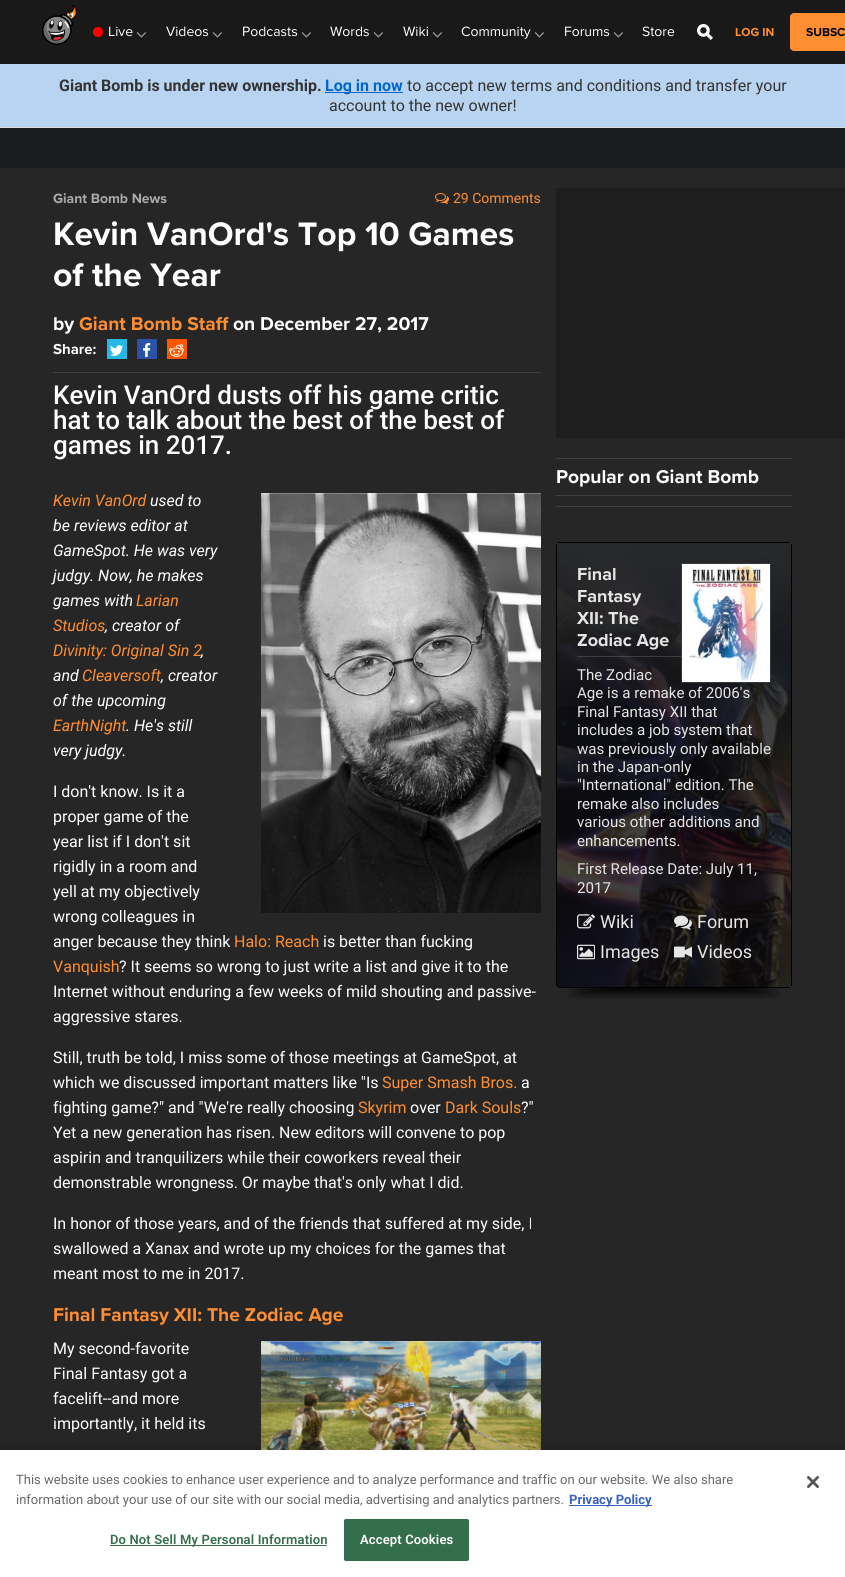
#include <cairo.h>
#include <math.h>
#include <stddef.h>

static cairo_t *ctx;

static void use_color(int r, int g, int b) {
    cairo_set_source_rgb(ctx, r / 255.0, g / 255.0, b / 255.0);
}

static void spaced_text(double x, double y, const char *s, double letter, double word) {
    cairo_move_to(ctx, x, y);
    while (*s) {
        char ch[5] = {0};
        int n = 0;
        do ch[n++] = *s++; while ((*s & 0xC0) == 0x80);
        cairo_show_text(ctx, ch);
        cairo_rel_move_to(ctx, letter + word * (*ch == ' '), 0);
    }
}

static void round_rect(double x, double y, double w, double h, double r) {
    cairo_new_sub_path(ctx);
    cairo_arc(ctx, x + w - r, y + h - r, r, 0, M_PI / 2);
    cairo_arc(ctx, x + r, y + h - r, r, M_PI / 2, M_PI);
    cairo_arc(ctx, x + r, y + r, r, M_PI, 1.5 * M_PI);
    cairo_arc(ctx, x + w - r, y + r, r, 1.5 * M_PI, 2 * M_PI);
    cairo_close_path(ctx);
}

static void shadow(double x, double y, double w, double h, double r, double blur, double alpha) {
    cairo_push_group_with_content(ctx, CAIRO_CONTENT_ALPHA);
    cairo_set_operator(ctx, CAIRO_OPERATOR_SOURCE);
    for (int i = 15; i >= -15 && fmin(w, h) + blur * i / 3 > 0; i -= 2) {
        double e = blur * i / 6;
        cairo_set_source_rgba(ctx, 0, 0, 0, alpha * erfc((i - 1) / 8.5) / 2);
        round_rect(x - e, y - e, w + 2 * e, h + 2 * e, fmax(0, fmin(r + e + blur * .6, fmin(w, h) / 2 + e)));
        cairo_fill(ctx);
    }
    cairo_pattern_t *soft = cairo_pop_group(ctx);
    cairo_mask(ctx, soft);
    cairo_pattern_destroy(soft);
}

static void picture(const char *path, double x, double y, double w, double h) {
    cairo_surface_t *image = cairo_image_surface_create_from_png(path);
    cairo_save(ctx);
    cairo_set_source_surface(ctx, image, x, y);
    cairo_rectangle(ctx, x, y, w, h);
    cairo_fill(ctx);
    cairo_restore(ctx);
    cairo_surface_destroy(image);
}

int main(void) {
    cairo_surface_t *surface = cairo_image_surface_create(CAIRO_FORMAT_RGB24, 845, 1577);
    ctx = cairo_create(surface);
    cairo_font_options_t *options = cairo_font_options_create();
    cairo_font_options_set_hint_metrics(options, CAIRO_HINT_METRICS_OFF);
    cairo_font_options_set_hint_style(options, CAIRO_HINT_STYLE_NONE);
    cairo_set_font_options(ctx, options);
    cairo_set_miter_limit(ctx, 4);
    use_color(38, 38, 38);
    cairo_paint(ctx);
    use_color(25, 25, 25);
    cairo_rectangle(ctx, 0, 0, 845, 64);
    cairo_fill(ctx);
    picture("img1.png", 42, 5, 35, 40);
    use_color(255, 0, 0);
    cairo_arc(ctx, 98, 32, 5, 0, 2 * M_PI);
    cairo_fill(ctx);
    cairo_select_font_face(ctx, "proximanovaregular", CAIRO_FONT_SLANT_NORMAL, CAIRO_FONT_WEIGHT_NORMAL);
    cairo_set_font_size(ctx, 14);
    use_color(255, 255, 255);
    cairo_move_to(ctx, 108, 36);
    cairo_show_text(ctx, "Live");
    picture("img2.png", 136, 32, 10, 6);
    cairo_move_to(ctx, 166, 36);
    cairo_show_text(ctx, "Videos");
    picture("img2.png", 212, 32, 10, 6);
    cairo_move_to(ctx, 242, 36);
    cairo_show_text(ctx, "Podcasts");
    picture("img2.png", 301, 32, 10, 6);
    cairo_move_to(ctx, 330, 36);
    cairo_show_text(ctx, "Words");
    picture("img2.png", 373, 32, 10, 6);
    cairo_move_to(ctx, 403, 36);
    cairo_show_text(ctx, "Wiki");
    picture("img2.png", 432, 32, 10, 6);
    cairo_move_to(ctx, 461, 36);
    cairo_show_text(ctx, "Community");
    picture("img2.png", 534, 32, 10, 6);
    cairo_move_to(ctx, 564, 36);
    cairo_show_text(ctx, "Forums");
    picture("img2.png", 613, 32, 10, 6);
    cairo_move_to(ctx, 642, 36);
    cairo_show_text(ctx, "Store");
    picture("img3.png", 697, 24, 16, 16);
    cairo_select_font_face(ctx, "Proxima Nova", CAIRO_FONT_SLANT_NORMAL, CAIRO_FONT_WEIGHT_BOLD);
    cairo_set_font_size(ctx, 12);
    use_color(255, 142, 51);
    cairo_move_to(ctx, 735, 36);
    cairo_show_text(ctx, "LOG IN");
    round_rect(790, 13, 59, 38, 4);
    cairo_fill(ctx);
    use_color(0, 0, 0);
    cairo_move_to(ctx, 806, 36);
    cairo_show_text(ctx, "SUBSC");
    use_color(184, 212, 240);
    cairo_rectangle(ctx, 0, 64, 845, 63);
    cairo_fill(ctx);
    use_color(221, 221, 221);
    cairo_rectangle(ctx, 0, 127, 845, 1);
    cairo_fill(ctx);
    cairo_select_font_face(ctx, "Roboto", CAIRO_FONT_SLANT_NORMAL, CAIRO_FONT_WEIGHT_BOLD);
    cairo_set_font_size(ctx, 16);
    use_color(51, 51, 51);
    cairo_move_to(ctx, 59, 91);
    cairo_show_text(ctx, "Giant Bomb is under new ownership.");
    use_color(0, 102, 204);
    cairo_rectangle(ctx, 325, 92, 78, 1);
    cairo_fill(ctx);
    cairo_move_to(ctx, 325, 91);
    cairo_show_text(ctx, "Log in now");
    cairo_select_font_face(ctx, "Roboto", CAIRO_FONT_SLANT_NORMAL, CAIRO_FONT_WEIGHT_NORMAL);
    use_color(51, 51, 51);
    cairo_move_to(ctx, 407, 91);
    cairo_show_text(ctx, "to accept new terms and conditions and transfer your");
    cairo_move_to(ctx, 329, 111);
    cairo_show_text(ctx, "account to the new owner!");
    use_color(27, 28, 29);
    cairo_rectangle(ctx, 0, 128, 845, 40);
    cairo_fill(ctx);
    cairo_select_font_face(ctx, "Proxima Nova", CAIRO_FONT_SLANT_NORMAL, CAIRO_FONT_WEIGHT_BOLD);
    cairo_set_font_size(ctx, 14);
    use_color(169, 171, 173);
    cairo_move_to(ctx, 53, 203);
    cairo_show_text(ctx, "Giant Bomb News");
    picture("img4.png", 435, 193, 14, 11);
    cairo_select_font_face(ctx, "Roboto", CAIRO_FONT_SLANT_NORMAL, CAIRO_FONT_WEIGHT_NORMAL);
    use_color(255, 142, 51);
    cairo_move_to(ctx, 453, 203);
    cairo_show_text(ctx, "29 Comments");
    cairo_select_font_face(ctx, "Proxima Nova", CAIRO_FONT_SLANT_NORMAL, CAIRO_FONT_WEIGHT_BOLD);
    cairo_set_font_size(ctx, 33.7);
    use_color(255, 255, 255);
    cairo_move_to(ctx, 53, 245);
    cairo_show_text(ctx, "Kevin VanOrd's Top 10 Games");
    cairo_move_to(ctx, 53, 286);
    cairo_show_text(ctx, "of the Year");
    use_color(64, 64, 64);
    cairo_rectangle(ctx, 53, 372, 488, 1);
    cairo_fill(ctx);
    cairo_set_font_size(ctx, 19.25);
    use_color(255, 255, 255);
    cairo_move_to(ctx, 53, 330);
    cairo_show_text(ctx, "by");
    use_color(255, 142, 51);
    cairo_move_to(ctx, 79, 330);
    cairo_show_text(ctx, "Giant Bomb Staff");
    use_color(255, 255, 255);
    cairo_move_to(ctx, 233, 330);
    cairo_show_text(ctx, "on December 27, 2017");
    cairo_set_font_size(ctx, 15);
    cairo_move_to(ctx, 53, 354);
    cairo_show_text(ctx, "Share:");
    use_color(39, 183, 231);
    cairo_rectangle(ctx, 107, 339, 20, 20);
    cairo_fill(ctx);
    picture("img5.png", 110, 345, 13, 11);
    use_color(42, 82, 167);
    cairo_rectangle(ctx, 137, 339, 20, 20);
    cairo_fill(ctx);
    picture("img6.png", 143, 343, 8, 14);
    use_color(255, 87, 0);
    cairo_rectangle(ctx, 167, 339, 20, 20);
    cairo_fill(ctx);
    picture("img7.png", 169, 344, 15, 13);
    cairo_select_font_face(ctx, "Roboto Medium", CAIRO_FONT_SLANT_NORMAL, CAIRO_FONT_WEIGHT_NORMAL);
    cairo_set_font_size(ctx, 26);
    use_color(255, 255, 255);
    cairo_move_to(ctx, 53, 404);
    cairo_show_text(ctx, "Kevin VanOrd dusts off his game critic");
    cairo_move_to(ctx, 53, 429);
    cairo_show_text(ctx, "hat to talk about the best of the best of");
    cairo_move_to(ctx, 53, 454);
    cairo_show_text(ctx, "games in 2017.");
    cairo_select_font_face(ctx, "Roboto", CAIRO_FONT_SLANT_ITALIC, CAIRO_FONT_WEIGHT_NORMAL);
    cairo_set_font_size(ctx, 16);
    use_color(255, 142, 51);
    cairo_move_to(ctx, 53, 506);
    cairo_show_text(ctx, "Kevin VanOrd");
    use_color(255, 255, 255);
    cairo_move_to(ctx, 150, 506);
    cairo_show_text(ctx, "used to");
    cairo_move_to(ctx, 53, 531);
    cairo_show_text(ctx, "be reviews editor at");
    cairo_move_to(ctx, 53, 556);
    cairo_show_text(ctx, "GameSpot. He was very");
    cairo_move_to(ctx, 53, 581);
    cairo_show_text(ctx, "judgy. Now, he makes");
    cairo_move_to(ctx, 53, 606);
    cairo_show_text(ctx, "games with");
    use_color(255, 142, 51);
    cairo_move_to(ctx, 136, 606);
    cairo_show_text(ctx, "Larian");
    cairo_move_to(ctx, 53, 631);
    cairo_show_text(ctx, "Studios");
    use_color(255, 255, 255);
    cairo_move_to(ctx, 105, 631);
    cairo_show_text(ctx, ", creator of");
    use_color(255, 142, 51);
    cairo_move_to(ctx, 53, 656);
    cairo_show_text(ctx, "Divinity: Original Sin 2");
    use_color(255, 255, 255);
    cairo_move_to(ctx, 201, 656);
    cairo_show_text(ctx, ",");
    cairo_move_to(ctx, 53, 681);
    cairo_show_text(ctx, "and");
    use_color(255, 142, 51);
    cairo_move_to(ctx, 82, 681);
    cairo_show_text(ctx, "Cleaversoft");
    use_color(255, 255, 255);
    cairo_move_to(ctx, 161, 681);
    cairo_show_text(ctx, ", creator");
    cairo_move_to(ctx, 53, 706);
    cairo_show_text(ctx, "of the upcoming");
    use_color(255, 142, 51);
    cairo_move_to(ctx, 53, 731);
    cairo_show_text(ctx, "EarthNight");
    use_color(255, 255, 255);
    cairo_move_to(ctx, 126, 731);
    cairo_show_text(ctx, ". He's still");
    cairo_move_to(ctx, 53, 756);
    cairo_show_text(ctx, "very judgy.");
    picture("img8.png", 261, 493, 280, 420);
    cairo_set_source_rgba(ctx, 1, 1, 1, 0.25);
    cairo_rectangle(ctx, 261, 493, 280, 1);
    cairo_fill(ctx);
    cairo_select_font_face(ctx, "Roboto", CAIRO_FONT_SLANT_NORMAL, CAIRO_FONT_WEIGHT_NORMAL);
    use_color(255, 255, 255);
    cairo_move_to(ctx, 53, 797);
    cairo_show_text(ctx, "I don't know. Is it a");
    cairo_move_to(ctx, 53, 822);
    cairo_show_text(ctx, "proper game of the");
    cairo_move_to(ctx, 53, 847);
    cairo_show_text(ctx, "year list if I don't sit");
    cairo_move_to(ctx, 53, 872);
    cairo_show_text(ctx, "rigidly in a room and");
    cairo_move_to(ctx, 53, 897);
    cairo_show_text(ctx, "yell at my objectively");
    cairo_move_to(ctx, 53, 922);
    cairo_show_text(ctx, "wrong colleagues in");
    cairo_move_to(ctx, 53, 947);
    cairo_show_text(ctx, "anger because they think");
    use_color(255, 142, 51);
    cairo_move_to(ctx, 234, 947);
    cairo_show_text(ctx, "Halo: Reach");
    use_color(255, 255, 255);
    cairo_move_to(ctx, 323, 947);
    cairo_show_text(ctx, "is better than fucking");
    use_color(255, 142, 51);
    cairo_move_to(ctx, 53, 972);
    cairo_show_text(ctx, "Vanquish");
    use_color(255, 255, 255);
    cairo_move_to(ctx, 119, 972);
    cairo_show_text(ctx, "? It seems so wrong to just write a list and give it to the");
    cairo_move_to(ctx, 53, 997);
    cairo_show_text(ctx, "Internet without enduring a few weeks of mild shouting and passive-");
    cairo_move_to(ctx, 53, 1022);
    cairo_show_text(ctx, "aggressive stares.");
    cairo_move_to(ctx, 53, 1063);
    cairo_show_text(ctx, "Still, truth be told, I miss some of those meetings at GameSpot, at");
    cairo_move_to(ctx, 53, 1088);
    cairo_show_text(ctx, "which we discussed important matters like \"Is");
    use_color(255, 142, 51);
    cairo_move_to(ctx, 382, 1088);
    cairo_show_text(ctx, "Super Smash Bros.");
    use_color(255, 255, 255);
    cairo_move_to(ctx, 521, 1088);
    cairo_show_text(ctx, "a");
    cairo_move_to(ctx, 53, 1113);
    cairo_show_text(ctx, "fighting game?\" and \"We're really choosing");
    use_color(255, 142, 51);
    cairo_move_to(ctx, 358, 1113);
    cairo_show_text(ctx, "Skyrim");
    use_color(255, 255, 255);
    cairo_move_to(ctx, 410, 1113);
    cairo_show_text(ctx, "over");
    use_color(255, 142, 51);
    cairo_move_to(ctx, 445, 1113);
    cairo_show_text(ctx, "Dark Souls");
    use_color(255, 255, 255);
    cairo_move_to(ctx, 521, 1113);
    cairo_show_text(ctx, "?\"");
    cairo_move_to(ctx, 53, 1138);
    cairo_show_text(ctx, "Yet a new generation has risen. New editors will convene to pop");
    cairo_move_to(ctx, 53, 1163);
    cairo_show_text(ctx, "aspirin and tranquilizers while their coworkers reveal their");
    cairo_move_to(ctx, 53, 1188);
    cairo_show_text(ctx, "demonstrable wrongness. Or maybe that's only what I did.");
    cairo_move_to(ctx, 53, 1229);
    cairo_show_text(ctx, "In honor of those years, and of the friends that suffered at my side, I");
    cairo_move_to(ctx, 53, 1254);
    cairo_show_text(ctx, "swallowed a Xanax and wrote up my choices for the games that");
    cairo_move_to(ctx, 53, 1279);
    cairo_show_text(ctx, "meant most to me in 2017.");
    cairo_select_font_face(ctx, "Proxima Nova", CAIRO_FONT_SLANT_NORMAL, CAIRO_FONT_WEIGHT_BOLD);
    cairo_set_font_size(ctx, 19.25);
    use_color(255, 142, 51);
    cairo_move_to(ctx, 53, 1321);
    cairo_show_text(ctx, "Final Fantasy XII: The Zodiac Age");
    cairo_select_font_face(ctx, "Roboto", CAIRO_FONT_SLANT_NORMAL, CAIRO_FONT_WEIGHT_NORMAL);
    cairo_set_font_size(ctx, 16);
    use_color(255, 255, 255);
    cairo_move_to(ctx, 53, 1354);
    cairo_show_text(ctx, "My second-favorite");
    cairo_move_to(ctx, 53, 1379);
    cairo_show_text(ctx, "Final Fantasy got a");
    cairo_move_to(ctx, 53, 1404);
    cairo_show_text(ctx, "facelift--and more");
    cairo_move_to(ctx, 53, 1429);
    cairo_show_text(ctx, "importantly, it held its");
    picture("img9.png", 261, 1341, 280, 109);
    cairo_set_source_rgba(ctx, 1, 1, 1, 0.25);
    cairo_rectangle(ctx, 261, 1341, 280, 1);
    cairo_fill(ctx);
    use_color(30, 30, 30);
    cairo_rectangle(ctx, 556, 188, 289, 250);
    cairo_fill(ctx);
    use_color(64, 64, 64);
    cairo_rectangle(ctx, 556, 458, 236, 1);
    cairo_fill(ctx);
    cairo_rectangle(ctx, 556, 495, 236, 1);
    cairo_fill(ctx);
    cairo_select_font_face(ctx, "Proxima Nova", CAIRO_FONT_SLANT_NORMAL, CAIRO_FONT_WEIGHT_BOLD);
    cairo_set_font_size(ctx, 19.25);
    use_color(255, 255, 255);
    cairo_move_to(ctx, 556, 483);
    cairo_show_text(ctx, "Popular on Giant Bomb");
    use_color(64, 64, 64);
    cairo_rectangle(ctx, 556, 506, 236, 1);
    cairo_fill(ctx);
    round_rect(556.5, 542.5, 235, 445, 3.5);
    use_color(0, 0, 0);
    cairo_set_line_width(ctx, 1);
    cairo_stroke(ctx);
    picture("img10.png", 557, 547, 234, 440);
    picture("img11.png", 557, 543, 234, 164);
    cairo_set_source_rgba(ctx, 1, 1, 1, 0.15);
    cairo_rectangle(ctx, 577, 656, 104, 1);
    cairo_fill(ctx);
    cairo_set_font_size(ctx, 18);
    use_color(230, 230, 230);
    cairo_move_to(ctx, 577, 580);
    cairo_show_text(ctx, "Final");
    cairo_move_to(ctx, 577, 602);
    cairo_show_text(ctx, "Fantasy");
    cairo_move_to(ctx, 577, 624);
    cairo_show_text(ctx, "XII: The");
    cairo_move_to(ctx, 577, 646);
    cairo_show_text(ctx, "Zodiac Age");
    cairo_rectangle(ctx, 681.5, 563.5, 89, 119);
    use_color(53, 56, 59);
    cairo_stroke(ctx);
    picture("img12.png", 682, 564, 88, 118);
    cairo_select_font_face(ctx, "Roboto", CAIRO_FONT_SLANT_NORMAL, CAIRO_FONT_WEIGHT_NORMAL);
    cairo_set_font_size(ctx, 15.1);
    use_color(230, 230, 230);
    cairo_move_to(ctx, 577, 680);
    cairo_show_text(ctx, "The Zodiac");
    cairo_move_to(ctx, 577, 698);
    cairo_show_text(ctx, "Age is a remake of 2006's");
    cairo_move_to(ctx, 577, 717);
    cairo_show_text(ctx, "Final Fantasy XII that");
    cairo_move_to(ctx, 577, 735);
    cairo_show_text(ctx, "includes a job system that");
    cairo_move_to(ctx, 577, 754);
    cairo_show_text(ctx, "was previously only available");
    cairo_move_to(ctx, 577, 772);
    cairo_show_text(ctx, "in the Japan-only");
    cairo_move_to(ctx, 577, 790);
    cairo_show_text(ctx, "\"International\" edition. The");
    cairo_move_to(ctx, 577, 809);
    cairo_show_text(ctx, "remake also includes");
    cairo_move_to(ctx, 577, 827);
    cairo_show_text(ctx, "various other additions and");
    cairo_move_to(ctx, 577, 846);
    cairo_show_text(ctx, "enhancements.");
    cairo_move_to(ctx, 577, 874);
    cairo_show_text(ctx, "First Release Date: July 11,");
    cairo_move_to(ctx, 577, 893);
    cairo_show_text(ctx, "2017");
    picture("img13.png", 577, 914, 18, 15);
    cairo_set_font_size(ctx, 18);
    cairo_move_to(ctx, 600, 928);
    cairo_show_text(ctx, "Wiki");
    picture("img14.png", 674, 915, 18, 15);
    cairo_move_to(ctx, 697, 928);
    cairo_show_text(ctx, "Forum");
    picture("img15.png", 577, 944, 18, 16);
    cairo_move_to(ctx, 600, 958);
    cairo_show_text(ctx, "Images");
    picture("img16.png", 674, 946, 18, 12);
    cairo_move_to(ctx, 697, 958);
    cairo_show_text(ctx, "Videos");
    picture("img17.png", 568, 988, 212, 11);
    use_color(0, 0, 0);
    shadow(0, 1450, 845, 127, 0, 9, 0.2);
    use_color(255, 255, 255);
    cairo_rectangle(ctx, 0, 1450, 845, 127);
    cairo_fill(ctx);
    cairo_set_font_size(ctx, 13);
    use_color(105, 105, 105);
    cairo_move_to(ctx, 16, 1484);
    cairo_show_text(ctx, "This website uses cookies to enhance user experience and to analyze performance and traffic on our website. We also share");
    cairo_move_to(ctx, 16, 1504);
    cairo_show_text(ctx, "information about your use of our site with our social media, advertising and analytics partners.");
    use_color(56, 96, 190);
    cairo_rectangle(ctx, 569, 1505, 83, 1);
    cairo_fill(ctx);
    cairo_select_font_face(ctx, "Roboto", CAIRO_FONT_SLANT_NORMAL, CAIRO_FONT_WEIGHT_BOLD);
    cairo_move_to(ctx, 569, 1504);
    cairo_show_text(ctx, "Privacy Policy");
    use_color(52, 110, 74);
    cairo_rectangle(ctx, 110, 1545, 217, 1);
    cairo_fill(ctx);
    cairo_select_font_face(ctx, "Roboto SemiBold", CAIRO_FONT_SLANT_NORMAL, CAIRO_FONT_WEIGHT_NORMAL);
    spaced_text(110, 1544, "Do Not Sell My Personal Information", 0.15, 0);
    round_rect(344.5, 1519.5, 124, 41, 1.5);
    cairo_fill_preserve(ctx);
    cairo_stroke(ctx);
    use_color(255, 255, 255);
    spaced_text(360, 1544, "Accept Cookies", 0.15, 0);
    picture("img18.png", 807, 1476, 12, 12);
    cairo_surface_write_to_png(surface, "result.png");
    cairo_font_options_destroy(options);
    cairo_destroy(ctx);
    cairo_surface_destroy(surface);
    return 0;
}
